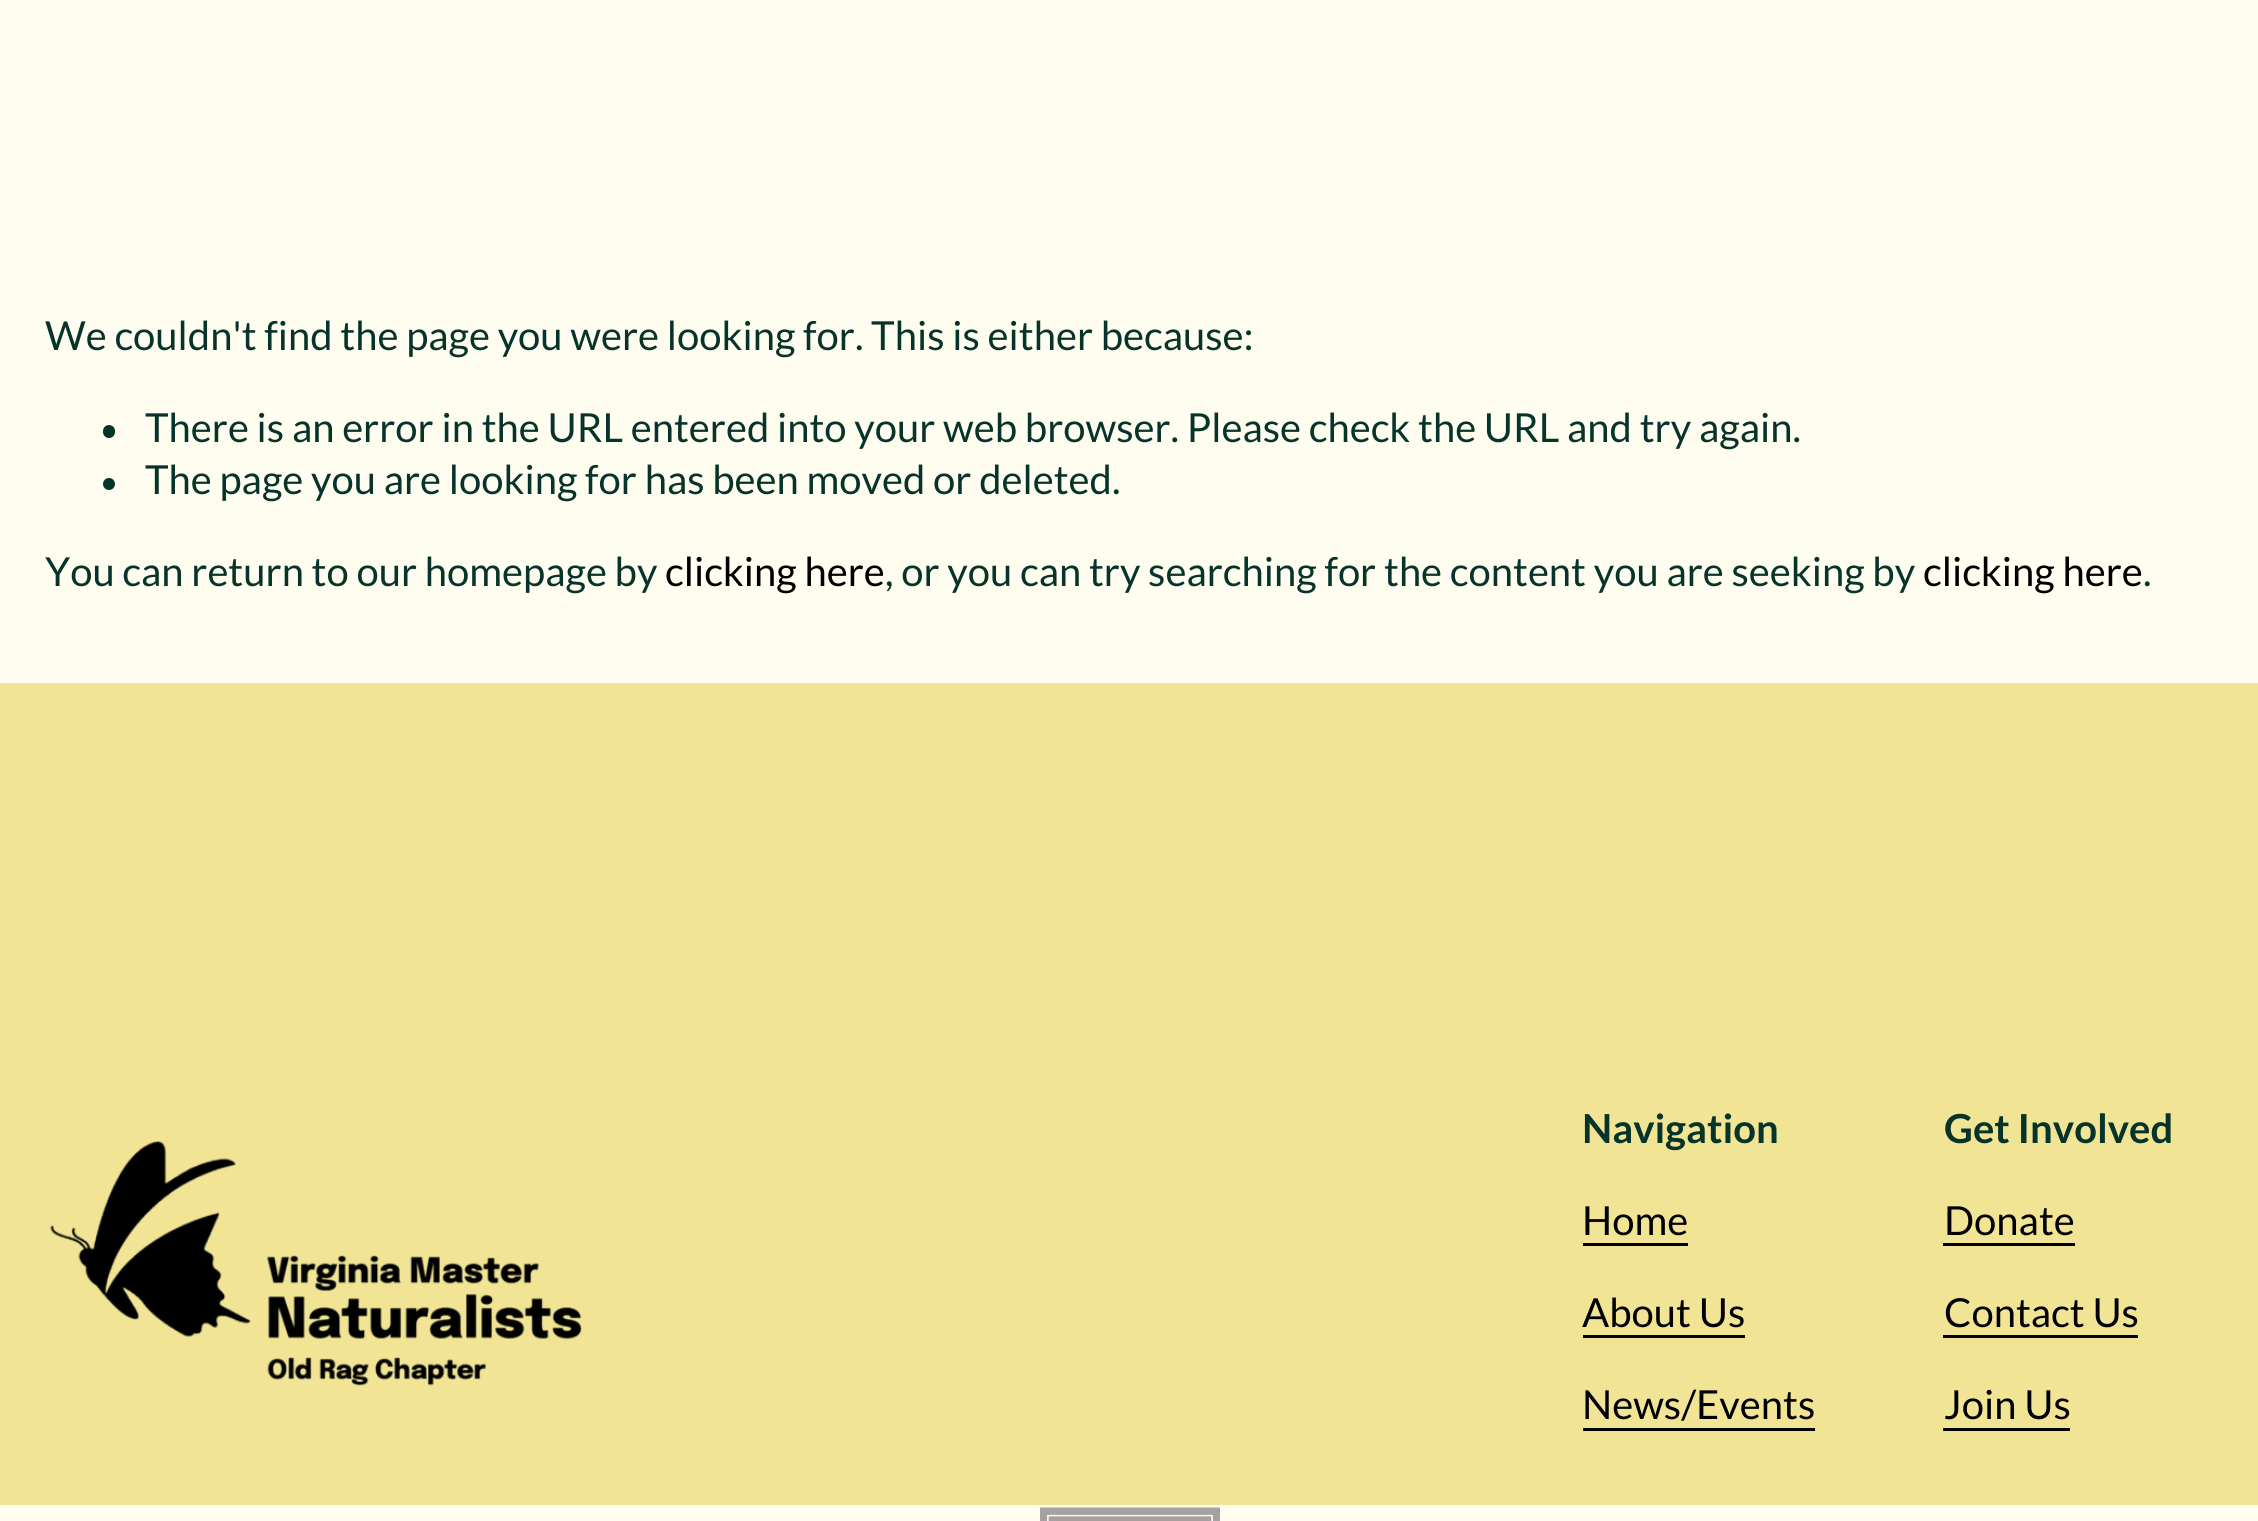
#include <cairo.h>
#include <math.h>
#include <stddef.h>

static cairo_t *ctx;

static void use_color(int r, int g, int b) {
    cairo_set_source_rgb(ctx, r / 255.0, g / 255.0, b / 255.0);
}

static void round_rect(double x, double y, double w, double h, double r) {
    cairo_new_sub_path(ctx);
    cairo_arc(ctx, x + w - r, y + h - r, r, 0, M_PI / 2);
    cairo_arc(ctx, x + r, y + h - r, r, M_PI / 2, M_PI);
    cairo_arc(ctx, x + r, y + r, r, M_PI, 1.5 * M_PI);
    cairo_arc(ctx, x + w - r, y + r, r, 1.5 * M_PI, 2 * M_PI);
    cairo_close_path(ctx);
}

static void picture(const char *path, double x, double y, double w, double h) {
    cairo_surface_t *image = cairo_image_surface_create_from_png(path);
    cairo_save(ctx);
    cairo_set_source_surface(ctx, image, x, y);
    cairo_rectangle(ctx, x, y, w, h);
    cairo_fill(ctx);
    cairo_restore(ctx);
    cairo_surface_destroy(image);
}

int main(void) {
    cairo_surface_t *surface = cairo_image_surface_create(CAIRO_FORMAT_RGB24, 2258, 1521);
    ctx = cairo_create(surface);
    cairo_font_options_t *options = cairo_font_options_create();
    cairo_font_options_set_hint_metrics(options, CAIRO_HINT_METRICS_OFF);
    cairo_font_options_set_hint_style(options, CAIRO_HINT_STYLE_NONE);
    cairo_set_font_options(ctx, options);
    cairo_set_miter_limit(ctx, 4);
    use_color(255, 253, 240);
    cairo_paint(ctx);
    cairo_select_font_face(ctx, "Lato", CAIRO_FONT_SLANT_NORMAL, CAIRO_FONT_WEIGHT_NORMAL);
    cairo_set_font_size(ctx, 40);
    use_color(7, 52, 42);
    cairo_move_to(ctx, 45, 350);
    cairo_show_text(ctx, "We couldn't find the page you were looking for. This is either because:");
    round_rect(103, 425, 12, 13, 6);
    cairo_fill(ctx);
    cairo_move_to(ctx, 145, 442);
    cairo_show_text(ctx, "There is an error in the URL entered into your web browser. Please check the URL and try again.");
    cairo_new_path(ctx);
    cairo_arc(ctx, 109, 484, 6, 0, 2 * M_PI);
    cairo_fill(ctx);
    cairo_move_to(ctx, 145, 494);
    cairo_show_text(ctx, "The page you are looking for has been moved or deleted.");
    cairo_move_to(ctx, 45, 586);
    cairo_show_text(ctx, "You can return to our homepage by");
    use_color(0, 0, 0);
    cairo_move_to(ctx, 665, 586);
    cairo_show_text(ctx, "clicking here");
    use_color(7, 52, 42);
    cairo_move_to(ctx, 885, 586);
    cairo_show_text(ctx, ", or you can try searching for the content you are seeking by");
    use_color(0, 0, 0);
    cairo_move_to(ctx, 1923, 586);
    cairo_show_text(ctx, "clicking here");
    use_color(7, 52, 42);
    cairo_move_to(ctx, 2143, 586);
    cairo_show_text(ctx, ".");
    use_color(241, 229, 149);
    cairo_rectangle(ctx, 0, 683, 2258, 822);
    cairo_fill(ctx);
    picture("img1.png", 50, 1141, 532, 245);
    cairo_select_font_face(ctx, "Lato", CAIRO_FONT_SLANT_NORMAL, CAIRO_FONT_WEIGHT_BOLD);
    use_color(7, 52, 42);
    cairo_move_to(ctx, 1582, 1143);
    cairo_show_text(ctx, "Navigation");
    cairo_select_font_face(ctx, "Lato", CAIRO_FONT_SLANT_NORMAL, CAIRO_FONT_WEIGHT_NORMAL);
    use_color(0, 0, 0);
    cairo_move_to(ctx, 1582, 1235);
    cairo_show_text(ctx, "Home");
    cairo_rectangle(ctx, 1583, 1243, 105, 3);
    cairo_fill(ctx);
    cairo_move_to(ctx, 1582, 1327);
    cairo_show_text(ctx, "About Us");
    cairo_rectangle(ctx, 1583, 1335, 162, 3);
    cairo_fill(ctx);
    cairo_move_to(ctx, 1582, 1419);
    cairo_show_text(ctx, "News/Events");
    cairo_rectangle(ctx, 1583, 1428, 232, 3);
    cairo_fill(ctx);
    cairo_select_font_face(ctx, "Lato", CAIRO_FONT_SLANT_NORMAL, CAIRO_FONT_WEIGHT_BOLD);
    use_color(7, 52, 42);
    cairo_move_to(ctx, 1944, 1143);
    cairo_show_text(ctx, "Get Involved");
    cairo_select_font_face(ctx, "Lato", CAIRO_FONT_SLANT_NORMAL, CAIRO_FONT_WEIGHT_NORMAL);
    use_color(0, 0, 0);
    cairo_move_to(ctx, 1944, 1235);
    cairo_show_text(ctx, "Donate");
    cairo_rectangle(ctx, 1943, 1243, 132, 3);
    cairo_fill(ctx);
    cairo_move_to(ctx, 1944, 1327);
    cairo_show_text(ctx, "Contact Us");
    cairo_rectangle(ctx, 1943, 1335, 195, 3);
    cairo_fill(ctx);
    cairo_move_to(ctx, 1944, 1419);
    cairo_show_text(ctx, "Join Us");
    cairo_rectangle(ctx, 1943, 1428, 127, 3);
    cairo_fill(ctx);
    picture("img2.png", 1040, 1507, 180, 14);
    cairo_surface_write_to_png(surface, "result.png");
    cairo_font_options_destroy(options);
    cairo_destroy(ctx);
    cairo_surface_destroy(surface);
    return 0;
}
